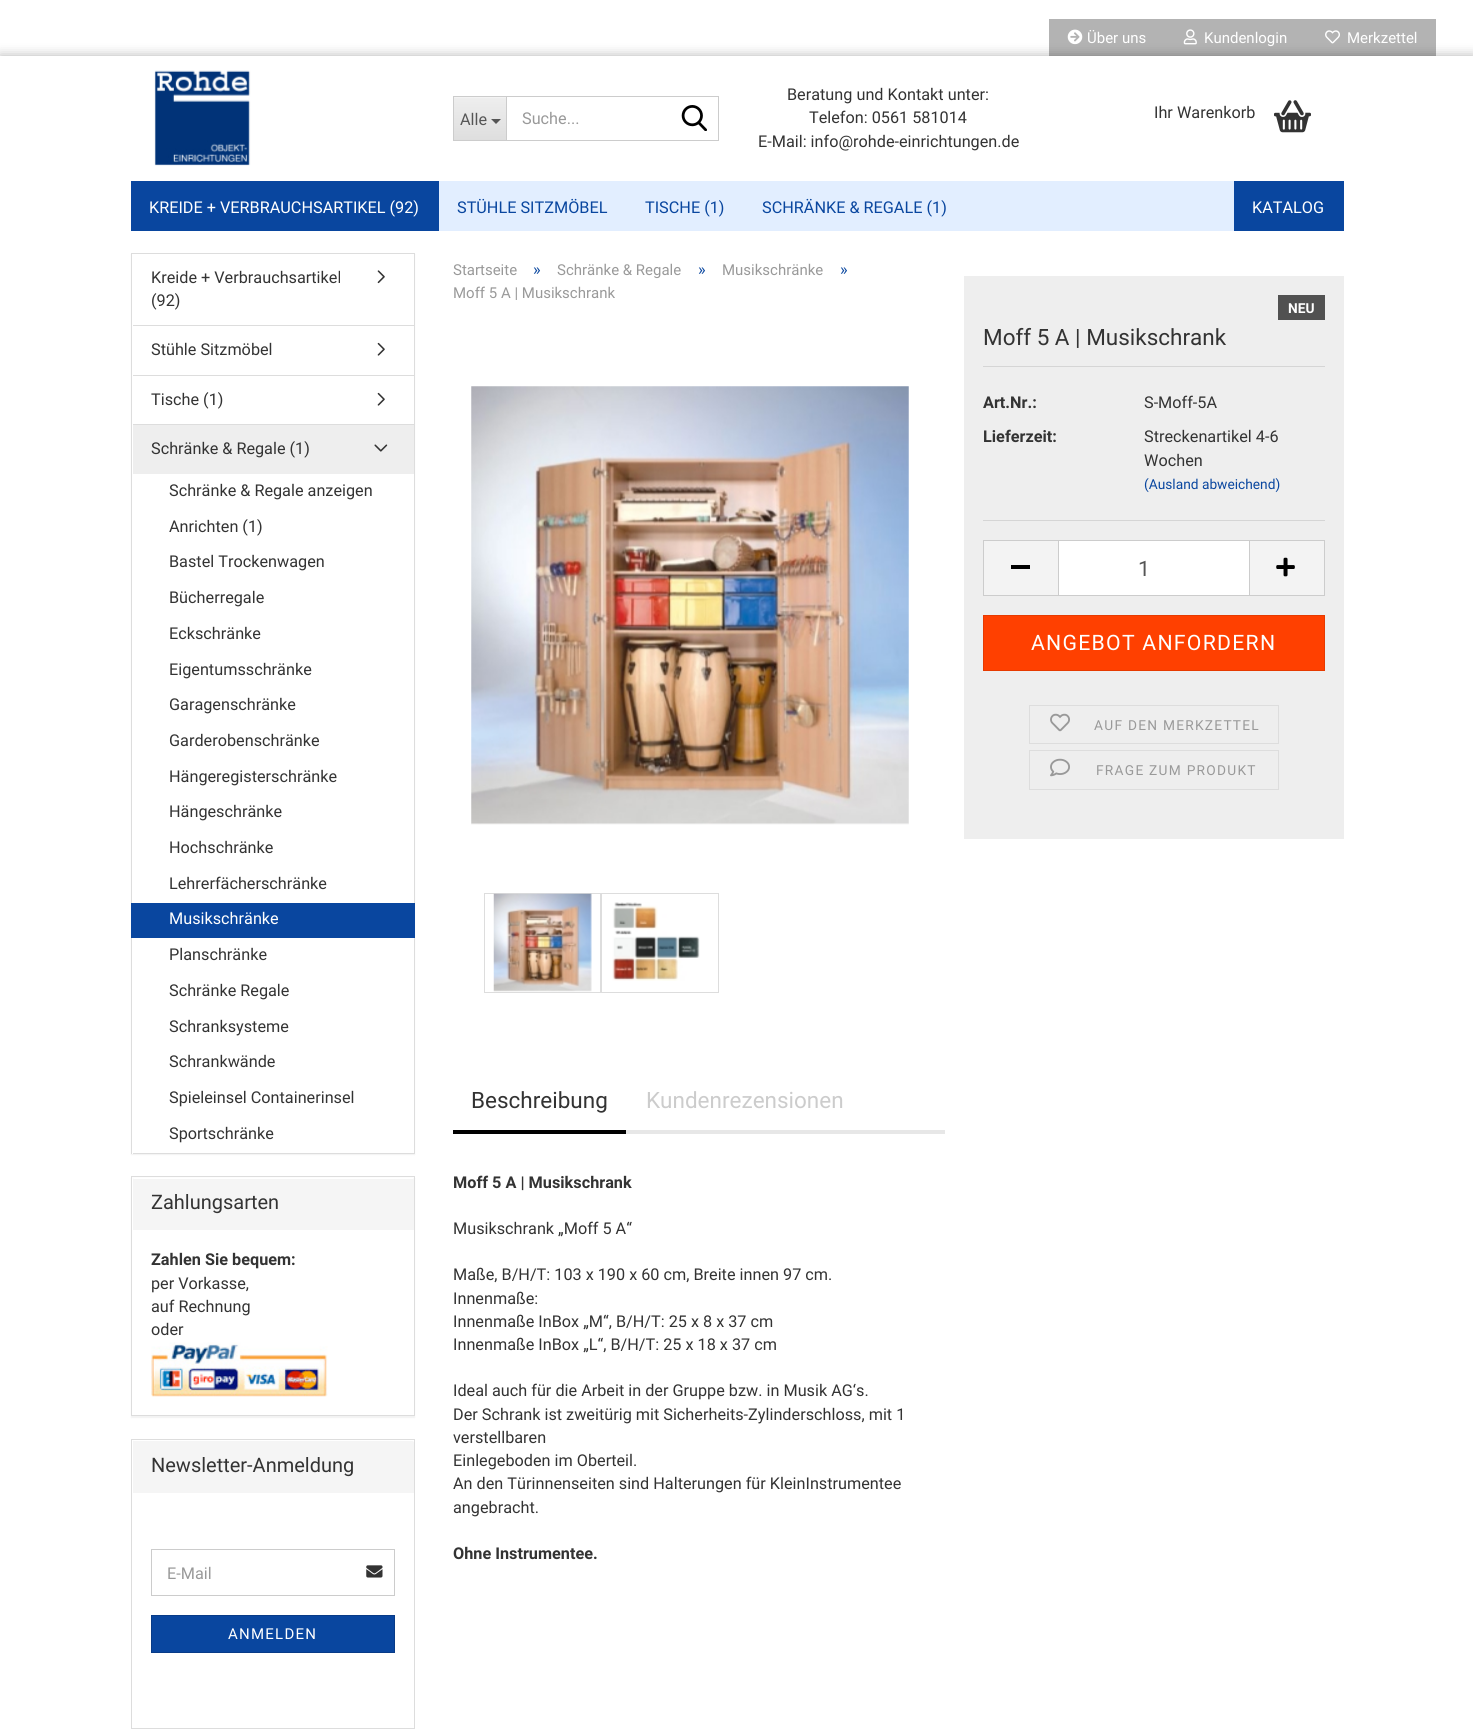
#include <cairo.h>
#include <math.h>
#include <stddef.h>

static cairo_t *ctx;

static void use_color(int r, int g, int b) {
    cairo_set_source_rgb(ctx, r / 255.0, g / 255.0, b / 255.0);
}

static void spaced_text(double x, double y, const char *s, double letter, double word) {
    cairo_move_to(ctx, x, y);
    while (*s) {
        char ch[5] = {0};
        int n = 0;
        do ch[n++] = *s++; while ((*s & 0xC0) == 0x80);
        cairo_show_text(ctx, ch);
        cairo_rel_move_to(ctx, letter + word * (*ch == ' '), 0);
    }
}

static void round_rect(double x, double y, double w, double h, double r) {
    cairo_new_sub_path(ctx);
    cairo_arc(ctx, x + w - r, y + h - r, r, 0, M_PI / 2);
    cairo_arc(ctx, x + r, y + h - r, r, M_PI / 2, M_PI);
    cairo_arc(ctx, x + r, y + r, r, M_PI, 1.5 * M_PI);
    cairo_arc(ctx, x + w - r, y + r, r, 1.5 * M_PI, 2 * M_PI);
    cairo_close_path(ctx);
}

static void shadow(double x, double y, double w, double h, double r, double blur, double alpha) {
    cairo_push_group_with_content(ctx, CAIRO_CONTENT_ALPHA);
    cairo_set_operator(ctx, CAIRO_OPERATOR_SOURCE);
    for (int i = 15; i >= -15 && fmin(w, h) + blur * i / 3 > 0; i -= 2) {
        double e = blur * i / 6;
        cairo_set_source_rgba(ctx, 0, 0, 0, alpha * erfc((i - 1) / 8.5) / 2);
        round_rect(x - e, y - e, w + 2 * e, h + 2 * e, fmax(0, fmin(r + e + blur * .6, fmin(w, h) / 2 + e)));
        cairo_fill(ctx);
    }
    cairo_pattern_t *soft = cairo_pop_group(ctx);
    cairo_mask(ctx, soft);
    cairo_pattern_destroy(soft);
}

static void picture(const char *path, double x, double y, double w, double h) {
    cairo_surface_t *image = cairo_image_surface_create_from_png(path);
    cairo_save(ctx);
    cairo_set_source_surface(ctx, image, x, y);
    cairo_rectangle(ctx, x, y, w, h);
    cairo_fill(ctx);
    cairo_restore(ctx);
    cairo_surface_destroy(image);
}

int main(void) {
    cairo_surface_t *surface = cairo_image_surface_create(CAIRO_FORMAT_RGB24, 1473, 1729);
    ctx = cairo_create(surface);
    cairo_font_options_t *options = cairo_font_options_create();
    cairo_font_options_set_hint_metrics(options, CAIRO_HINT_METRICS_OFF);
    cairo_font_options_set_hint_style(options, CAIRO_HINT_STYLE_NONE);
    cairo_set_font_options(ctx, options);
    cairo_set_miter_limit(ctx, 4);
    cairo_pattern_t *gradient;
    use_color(255, 255, 255);
    cairo_paint(ctx);
    use_color(0, 0, 0);
    shadow(0, 56, 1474, 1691, 0, 6, 0.3);
    use_color(255, 255, 255);
    cairo_rectangle(ctx, 0, 56, 1473, 1673);
    cairo_fill(ctx);
    cairo_set_source_rgba(ctx, 0, 0, 0, 0.3);
    cairo_rectangle(ctx, 1049, 19, 116, 37);
    cairo_fill(ctx);
    picture("img1.png", 1067, 29, 16, 16);
    cairo_select_font_face(ctx, "Roboto", CAIRO_FONT_SLANT_NORMAL, CAIRO_FONT_WEIGHT_NORMAL);
    cairo_set_font_size(ctx, 15);
    use_color(255, 255, 255);
    cairo_move_to(ctx, 1087, 43);
    cairo_show_text(ctx, "Über uns");
    cairo_set_source_rgba(ctx, 0, 0, 0, 0.3);
    cairo_rectangle(ctx, 1165, 19, 141, 37);
    cairo_fill(ctx);
    picture("img2.png", 1183, 29, 14, 16);
    use_color(255, 255, 255);
    cairo_move_to(ctx, 1204, 43);
    cairo_show_text(ctx, "Kundenlogin");
    cairo_set_source_rgba(ctx, 0, 0, 0, 0.3);
    cairo_rectangle(ctx, 1306, 19, 130, 37);
    cairo_fill(ctx);
    picture("img3.png", 1325, 30, 15, 14);
    use_color(255, 255, 255);
    cairo_move_to(ctx, 1347, 43);
    cairo_show_text(ctx, "Merkzettel");
    picture("img4.png", 154, 70, 97, 96);
    use_color(243, 243, 243);
    cairo_rectangle(ctx, 454, 97, 52, 1);
    cairo_fill(ctx);
    gradient = cairo_pattern_create_linear(480, 98, 480, 140);
    cairo_pattern_add_color_stop_rgba(gradient, 0, 0.933, 0.933, 0.933, 1);
    cairo_pattern_add_color_stop_rgba(gradient, 1, 0.871, 0.871, 0.871, 1);
    cairo_set_source(ctx, gradient);
    cairo_pattern_destroy(gradient);
    cairo_rectangle(ctx, 454, 98, 52, 42);
    cairo_fill(ctx);
    use_color(204, 204, 204);
    cairo_rectangle(ctx, 453, 96, 53, 1);
    cairo_fill(ctx);
    cairo_rectangle(ctx, 453, 140, 53, 1);
    cairo_fill(ctx);
    cairo_rectangle(ctx, 453, 96, 1, 45);
    cairo_fill(ctx);
    cairo_set_font_size(ctx, 16.25);
    use_color(85, 85, 85);
    cairo_move_to(ctx, 460, 125);
    cairo_show_text(ctx, "Alle");
    cairo_new_path(ctx);
    cairo_move_to(ctx, 491, 119);
    cairo_line_to(ctx, 501, 119);
    cairo_line_to(ctx, 496, 124);
    cairo_close_path(ctx);
    cairo_fill(ctx);
    cairo_rectangle(ctx, 506.5, 96.5, 212, 44);
    use_color(204, 204, 204);
    cairo_set_line_width(ctx, 1);
    cairo_stroke(ctx);
    use_color(153, 153, 153);
    cairo_move_to(ctx, 522, 124);
    cairo_show_text(ctx, "Suche...");
    picture("img5.png", 681, 105, 26, 26);
    use_color(51, 51, 51);
    cairo_move_to(ctx, 787, 100);
    cairo_show_text(ctx, "Beratung und Kontakt unter:");
    cairo_move_to(ctx, 809, 123);
    cairo_show_text(ctx, "Telefon: 0561 581014");
    cairo_move_to(ctx, 758, 147);
    cairo_show_text(ctx, "E-Mail: info@rohde-einrichtungen.de");
    cairo_move_to(ctx, 1154, 118);
    cairo_show_text(ctx, "Ihr Warenkorb");
    picture("img6.png", 1274, 100, 37, 33);
    use_color(226, 238, 255);
    cairo_rectangle(ctx, 439, 181, 795, 50);
    cairo_fill(ctx);
    use_color(9, 70, 159);
    cairo_rectangle(ctx, 131, 181, 308, 50);
    cairo_fill(ctx);
    use_color(255, 255, 255);
    cairo_move_to(ctx, 149, 213);
    cairo_show_text(ctx, "KREIDE + VERBRAUCHSARTIKEL (92)");
    use_color(9, 70, 159);
    cairo_move_to(ctx, 457, 213);
    cairo_show_text(ctx, "STÜHLE SITZMÖBEL");
    cairo_move_to(ctx, 645, 213);
    cairo_show_text(ctx, "TISCHE (1)");
    cairo_move_to(ctx, 762, 213);
    cairo_show_text(ctx, "SCHRÄNKE & REGALE (1)");
    cairo_rectangle(ctx, 1234, 181, 110, 50);
    cairo_fill(ctx);
    use_color(255, 255, 255);
    cairo_move_to(ctx, 1252, 213);
    cairo_show_text(ctx, "KATALOG");
    use_color(0, 0, 0);
    shadow(131, 254, 284, 901, 0, 0.5, 0.05);
    use_color(255, 255, 255);
    cairo_rectangle(ctx, 132, 254, 282, 900);
    cairo_fill(ctx);
    use_color(221, 221, 221);
    cairo_rectangle(ctx, 131, 253, 284, 1);
    cairo_fill(ctx);
    cairo_rectangle(ctx, 414, 253, 1, 901);
    cairo_fill(ctx);
    cairo_rectangle(ctx, 131, 253, 1, 901);
    cairo_fill(ctx);
    cairo_rectangle(ctx, 133, 325, 281, 1);
    cairo_fill(ctx);
    use_color(51, 51, 51);
    cairo_move_to(ctx, 151, 283);
    cairo_show_text(ctx, "Kreide + Verbrauchsartikel");
    picture("img7.png", 377, 270, 8, 14);
    cairo_move_to(ctx, 151, 306);
    cairo_show_text(ctx, "(92)");
    use_color(221, 221, 221);
    cairo_rectangle(ctx, 133, 375, 281, 1);
    cairo_fill(ctx);
    use_color(51, 51, 51);
    cairo_move_to(ctx, 151, 355);
    cairo_show_text(ctx, "Stühle Sitzmöbel");
    picture("img8.png", 377, 342, 8, 14);
    use_color(221, 221, 221);
    cairo_rectangle(ctx, 133, 424, 281, 1);
    cairo_fill(ctx);
    use_color(51, 51, 51);
    cairo_move_to(ctx, 151, 405);
    cairo_show_text(ctx, "Tische (1)");
    picture("img8.png", 377, 392, 8, 14);
    use_color(221, 221, 221);
    cairo_rectangle(ctx, 133, 1153, 281, 1);
    cairo_fill(ctx);
    use_color(238, 238, 238);
    cairo_rectangle(ctx, 133, 425, 281, 49);
    cairo_fill(ctx);
    use_color(51, 51, 51);
    cairo_move_to(ctx, 151, 454);
    cairo_show_text(ctx, "Schränke & Regale (1)");
    picture("img9.png", 374, 444, 14, 8);
    cairo_move_to(ctx, 169, 496);
    cairo_show_text(ctx, "Schränke & Regale anzeigen");
    cairo_move_to(ctx, 169, 532);
    cairo_show_text(ctx, "Anrichten (1)");
    cairo_move_to(ctx, 169, 567);
    cairo_show_text(ctx, "Bastel Trockenwagen");
    cairo_move_to(ctx, 169, 603);
    cairo_show_text(ctx, "Bücherregale");
    cairo_move_to(ctx, 169, 639);
    cairo_show_text(ctx, "Eckschränke");
    cairo_move_to(ctx, 169, 675);
    cairo_show_text(ctx, "Eigentumsschränke");
    cairo_move_to(ctx, 169, 710);
    cairo_show_text(ctx, "Garagenschränke");
    cairo_move_to(ctx, 169, 746);
    cairo_show_text(ctx, "Garderobenschränke");
    cairo_move_to(ctx, 169, 782);
    cairo_show_text(ctx, "Hängeregisterschränke");
    cairo_move_to(ctx, 169, 817);
    cairo_show_text(ctx, "Hängeschränke");
    cairo_move_to(ctx, 169, 853);
    cairo_show_text(ctx, "Hochschränke");
    cairo_move_to(ctx, 169, 889);
    cairo_show_text(ctx, "Lehrerfächerschränke");
    use_color(9, 70, 159);
    cairo_rectangle(ctx, 131, 903, 284, 35);
    cairo_fill(ctx);
    use_color(255, 255, 255);
    cairo_move_to(ctx, 169, 924);
    cairo_show_text(ctx, "Musikschränke");
    use_color(51, 51, 51);
    cairo_move_to(ctx, 169, 960);
    cairo_show_text(ctx, "Planschränke");
    cairo_move_to(ctx, 169, 996);
    cairo_show_text(ctx, "Schränke Regale");
    cairo_move_to(ctx, 169, 1032);
    cairo_show_text(ctx, "Schranksysteme");
    cairo_move_to(ctx, 169, 1067);
    cairo_show_text(ctx, "Schrankwände");
    cairo_move_to(ctx, 169, 1103);
    cairo_show_text(ctx, "Spieleinsel Containerinsel");
    cairo_move_to(ctx, 169, 1139);
    cairo_show_text(ctx, "Sportschränke");
    use_color(0, 0, 0);
    shadow(131, 1178, 284, 240, 0, 0.5, 0.05);
    use_color(255, 255, 255);
    cairo_rectangle(ctx, 132, 1178, 282, 237);
    cairo_fill(ctx);
    cairo_rectangle(ctx, 131.5, 1176.5, 283, 239);
    use_color(221, 221, 221);
    cairo_stroke(ctx);
    use_color(245, 245, 245);
    cairo_new_path(ctx);
    cairo_move_to(ctx, 134, 1178);
    cairo_line_to(ctx, 413, 1178);
    cairo_curve_to(ctx, 413.5, 1178, 414, 1178.5, 414, 1179);
    cairo_line_to(ctx, 414, 1230);
    cairo_line_to(ctx, 133, 1230);
    cairo_line_to(ctx, 133, 1179);
    cairo_curve_to(ctx, 133, 1178.5, 133.5, 1178, 134, 1178);
    cairo_close_path(ctx);
    cairo_fill(ctx);
    use_color(255, 255, 255);
    cairo_new_path(ctx);
    cairo_move_to(ctx, 134, 1179);
    cairo_line_to(ctx, 412, 1179);
    cairo_curve_to(ctx, 413, 1179, 414, 1179, 414, 1180);
    cairo_line_to(ctx, 413, 1178);
    cairo_line_to(ctx, 134, 1178);
    cairo_line_to(ctx, 133, 1179);
    cairo_close_path(ctx);
    cairo_fill(ctx);
    cairo_set_font_size(ctx, 20);
    use_color(51, 51, 51);
    cairo_move_to(ctx, 151, 1209);
    cairo_show_text(ctx, "Zahlungsarten");
    cairo_select_font_face(ctx, "Roboto", CAIRO_FONT_SLANT_NORMAL, CAIRO_FONT_WEIGHT_BOLD);
    cairo_set_font_size(ctx, 16.25);
    cairo_move_to(ctx, 151, 1265);
    cairo_show_text(ctx, "Zahlen Sie bequem:");
    cairo_select_font_face(ctx, "Roboto", CAIRO_FONT_SLANT_NORMAL, CAIRO_FONT_WEIGHT_NORMAL);
    cairo_move_to(ctx, 151, 1289);
    cairo_show_text(ctx, "per Vorkasse,");
    cairo_move_to(ctx, 151, 1312);
    cairo_show_text(ctx, "auf Rechnung");
    cairo_move_to(ctx, 151, 1335);
    cairo_show_text(ctx, "oder");
    picture("img10.png", 151, 1342, 177, 55);
    cairo_rectangle(ctx, 131.5, 1439.5, 283, 289);
    use_color(221, 221, 221);
    cairo_stroke(ctx);
    use_color(245, 245, 245);
    cairo_new_path(ctx);
    cairo_move_to(ctx, 134, 1440);
    cairo_line_to(ctx, 413, 1440);
    cairo_curve_to(ctx, 413.5, 1440, 414, 1440.5, 414, 1441);
    cairo_line_to(ctx, 414, 1493);
    cairo_line_to(ctx, 133, 1493);
    cairo_line_to(ctx, 133, 1441);
    cairo_curve_to(ctx, 133, 1440.5, 133.5, 1440, 134, 1440);
    cairo_close_path(ctx);
    cairo_fill(ctx);
    use_color(255, 255, 255);
    cairo_new_path(ctx);
    cairo_move_to(ctx, 134, 1441);
    cairo_line_to(ctx, 412, 1441);
    cairo_curve_to(ctx, 413, 1441, 414, 1442, 414, 1442);
    cairo_line_to(ctx, 414, 1440);
    cairo_line_to(ctx, 134, 1440);
    cairo_curve_to(ctx, 133, 1440, 133, 1441, 133, 1441);
    cairo_close_path(ctx);
    cairo_fill(ctx);
    cairo_set_font_size(ctx, 20);
    use_color(51, 51, 51);
    cairo_move_to(ctx, 151, 1472);
    cairo_show_text(ctx, "Newsletter-Anmeldung");
    cairo_rectangle(ctx, 151.5, 1549.5, 243, 46);
    use_color(204, 204, 204);
    cairo_stroke(ctx);
    cairo_set_font_size(ctx, 16.25);
    use_color(153, 153, 153);
    cairo_move_to(ctx, 167, 1579);
    cairo_show_text(ctx, "E-Mail");
    picture("img11.png", 366, 1565, 17, 13);
    use_color(9, 70, 159);
    cairo_rectangle(ctx, 151.5, 1615.5, 243, 37);
    cairo_fill_preserve(ctx);
    use_color(8, 59, 135);
    cairo_stroke(ctx);
    cairo_set_font_size(ctx, 15);
    use_color(255, 255, 255);
    spaced_text(228, 1639, "ANMELDEN", 1.25, 0);
    use_color(153, 153, 153);
    cairo_move_to(ctx, 453, 275);
    cairo_show_text(ctx, "Startseite");
    cairo_set_font_size(ctx, 16.25);
    use_color(9, 70, 159);
    cairo_move_to(ctx, 533, 275);
    cairo_show_text(ctx, "»");
    cairo_set_font_size(ctx, 15);
    use_color(153, 153, 153);
    cairo_move_to(ctx, 557, 275);
    cairo_show_text(ctx, "Schränke & Regale");
    cairo_set_font_size(ctx, 16.25);
    use_color(9, 70, 159);
    cairo_move_to(ctx, 698, 275);
    cairo_show_text(ctx, "»");
    cairo_set_font_size(ctx, 15);
    use_color(153, 153, 153);
    cairo_move_to(ctx, 722, 275);
    cairo_show_text(ctx, "Musikschränke");
    cairo_set_font_size(ctx, 16.25);
    use_color(9, 70, 159);
    cairo_move_to(ctx, 840, 275);
    cairo_show_text(ctx, "»");
    cairo_set_font_size(ctx, 15);
    use_color(153, 153, 153);
    cairo_move_to(ctx, 453, 298);
    cairo_show_text(ctx, "Moff 5 A | Musikschrank");
    picture("img12.png", 471, 386, 438, 439);
    cairo_rectangle(ctx, 484.5, 893.5, 116, 99);
    use_color(221, 221, 221);
    cairo_stroke(ctx);
    picture("img13.png", 493, 893, 99, 99);
    cairo_rectangle(ctx, 601.5, 893.5, 117, 99);
    cairo_stroke(ctx);
    picture("img14.png", 612, 902, 88, 79);
    use_color(238, 238, 238);
    cairo_rectangle(ctx, 964, 276, 380, 563);
    cairo_fill(ctx);
    use_color(81, 81, 81);
    cairo_rectangle(ctx, 1278, 295, 47, 25);
    cairo_fill(ctx);
    cairo_select_font_face(ctx, "Roboto", CAIRO_FONT_SLANT_NORMAL, CAIRO_FONT_WEIGHT_BOLD);
    cairo_set_font_size(ctx, 13.75);
    use_color(255, 255, 255);
    cairo_move_to(ctx, 1288, 313);
    cairo_show_text(ctx, "NEU");
    use_color(213, 213, 213);
    cairo_rectangle(ctx, 983, 366, 342, 1);
    cairo_fill(ctx);
    cairo_select_font_face(ctx, "Roboto", CAIRO_FONT_SLANT_NORMAL, CAIRO_FONT_WEIGHT_NORMAL);
    cairo_set_font_size(ctx, 22.5);
    use_color(51, 51, 51);
    cairo_move_to(ctx, 983, 345);
    cairo_show_text(ctx, "Moff 5 A | Musikschrank");
    use_color(213, 213, 213);
    cairo_rectangle(ctx, 983, 520, 342, 1);
    cairo_fill(ctx);
    cairo_select_font_face(ctx, "Roboto", CAIRO_FONT_SLANT_NORMAL, CAIRO_FONT_WEIGHT_BOLD);
    cairo_set_font_size(ctx, 16.25);
    use_color(51, 51, 51);
    cairo_move_to(ctx, 983, 408);
    cairo_show_text(ctx, "Art.Nr.:");
    cairo_select_font_face(ctx, "Roboto", CAIRO_FONT_SLANT_NORMAL, CAIRO_FONT_WEIGHT_NORMAL);
    cairo_move_to(ctx, 1144, 408);
    cairo_show_text(ctx, "S-Moff-5A");
    cairo_select_font_face(ctx, "Roboto", CAIRO_FONT_SLANT_NORMAL, CAIRO_FONT_WEIGHT_BOLD);
    cairo_move_to(ctx, 983, 442);
    cairo_show_text(ctx, "Lieferzeit:");
    cairo_select_font_face(ctx, "Roboto", CAIRO_FONT_SLANT_NORMAL, CAIRO_FONT_WEIGHT_NORMAL);
    cairo_move_to(ctx, 1144, 442);
    cairo_show_text(ctx, "Streckenartikel 4-6");
    cairo_move_to(ctx, 1144, 466);
    cairo_show_text(ctx, "Wochen");
    cairo_set_font_size(ctx, 13.75);
    use_color(9, 70, 159);
    cairo_move_to(ctx, 1144, 489);
    cairo_show_text(ctx, "(Ausland abweichend)");
    use_color(243, 243, 243);
    cairo_rectangle(ctx, 984, 541, 74, 54);
    cairo_fill(ctx);
    use_color(204, 204, 204);
    cairo_rectangle(ctx, 983, 540, 75, 1);
    cairo_fill(ctx);
    cairo_rectangle(ctx, 983, 595, 75, 1);
    cairo_fill(ctx);
    cairo_rectangle(ctx, 983, 540, 1, 56);
    cairo_fill(ctx);
    use_color(0, 0, 0);
    cairo_rectangle(ctx, 1011, 565, 19, 4);
    cairo_fill(ctx);
    use_color(255, 255, 255);
    cairo_rectangle(ctx, 1058.5, 540.5, 191, 55);
    cairo_fill_preserve(ctx);
    use_color(204, 204, 204);
    cairo_stroke(ctx);
    cairo_set_font_size(ctx, 21.25);
    use_color(85, 85, 85);
    cairo_move_to(ctx, 1138, 576);
    cairo_show_text(ctx, "1");
    use_color(243, 243, 243);
    cairo_rectangle(ctx, 1250, 541, 74, 54);
    cairo_fill(ctx);
    use_color(204, 204, 204);
    cairo_rectangle(ctx, 1250, 540, 75, 1);
    cairo_fill(ctx);
    cairo_rectangle(ctx, 1324, 540, 1, 56);
    cairo_fill(ctx);
    cairo_rectangle(ctx, 1250, 595, 75, 1);
    cairo_fill(ctx);
    picture("img15.png", 1276, 557, 19, 20);
    use_color(255, 64, 0);
    cairo_rectangle(ctx, 983.5, 615.5, 341, 55);
    cairo_fill_preserve(ctx);
    use_color(230, 58, 0);
    cairo_stroke(ctx);
    use_color(255, 255, 255);
    spaced_text(1031, 650, "ANGEBOT ANFORDERN", 1.25, 0);
    cairo_rectangle(ctx, 1029.5, 705.5, 249, 38);
    use_color(221, 221, 221);
    cairo_stroke(ctx);
    picture("img16.png", 1050, 713, 20, 19);
    cairo_set_font_size(ctx, 13.75);
    use_color(153, 153, 153);
    spaced_text(1094, 730, "AUF DEN MERKZETTEL", 1.25, 0);
    cairo_rectangle(ctx, 1029.5, 750.5, 249, 39);
    use_color(221, 221, 221);
    cairo_stroke(ctx);
    picture("img17.png", 1050, 758, 20, 19);
    use_color(153, 153, 153);
    spaced_text(1096, 775, "FRAGE ZUM PRODUKT", 1.25, 0);
    use_color(231, 231, 231);
    cairo_rectangle(ctx, 626, 1130, 319, 4);
    cairo_fill(ctx);
    use_color(0, 0, 0);
    cairo_rectangle(ctx, 453, 1130, 173, 4);
    cairo_fill(ctx);
    cairo_set_font_size(ctx, 22.5);
    use_color(51, 51, 51);
    cairo_move_to(ctx, 471, 1108);
    cairo_show_text(ctx, "Beschreibung");
    use_color(204, 204, 204);
    cairo_move_to(ctx, 646, 1108);
    cairo_show_text(ctx, "Kundenrezensionen");
    cairo_select_font_face(ctx, "Roboto", CAIRO_FONT_SLANT_NORMAL, CAIRO_FONT_WEIGHT_BOLD);
    cairo_set_font_size(ctx, 16.25);
    use_color(51, 51, 51);
    cairo_move_to(ctx, 453, 1188);
    cairo_show_text(ctx, "Moff 5 A | Musikschrank");
    cairo_select_font_face(ctx, "Roboto", CAIRO_FONT_SLANT_NORMAL, CAIRO_FONT_WEIGHT_NORMAL);
    cairo_move_to(ctx, 453, 1234);
    cairo_show_text(ctx, "Musikschrank „Moff 5 A“");
    cairo_move_to(ctx, 453, 1280);
    cairo_show_text(ctx, "Maße, B/H/T: 103 x 190 x 60 cm, Breite innen 97 cm.");
    cairo_move_to(ctx, 453, 1304);
    cairo_show_text(ctx, "Innenmaße:");
    cairo_move_to(ctx, 453, 1327);
    cairo_show_text(ctx, "Innenmaße InBox „M“, B/H/T: 25 x 8 x 37 cm");
    cairo_move_to(ctx, 453, 1350);
    cairo_show_text(ctx, "Innenmaße InBox „L“, B/H/T: 25 x 18 x 37 cm");
    cairo_move_to(ctx, 453, 1396);
    cairo_show_text(ctx, "Ideal auch für die Arbeit in der Gruppe bzw. in Musik AG‘s.");
    cairo_move_to(ctx, 453, 1420);
    cairo_show_text(ctx, "Der Schrank ist zweitürig mit Sicherheits-Zylinderschloss, mit 1");
    cairo_move_to(ctx, 453, 1443);
    cairo_show_text(ctx, "verstellbaren");
    cairo_move_to(ctx, 453, 1466);
    cairo_show_text(ctx, "Einlegeboden im Oberteil.");
    cairo_move_to(ctx, 453, 1489);
    cairo_show_text(ctx, "An den Türinnenseiten sind Halterungen für KleinInstrumentee");
    cairo_move_to(ctx, 453, 1513);
    cairo_show_text(ctx, "angebracht.");
    cairo_select_font_face(ctx, "Roboto", CAIRO_FONT_SLANT_NORMAL, CAIRO_FONT_WEIGHT_BOLD);
    cairo_move_to(ctx, 453, 1559);
    cairo_show_text(ctx, "Ohne Instrumentee.");
    cairo_surface_write_to_png(surface, "result.png");
    cairo_font_options_destroy(options);
    cairo_destroy(ctx);
    cairo_surface_destroy(surface);
    return 0;
}
